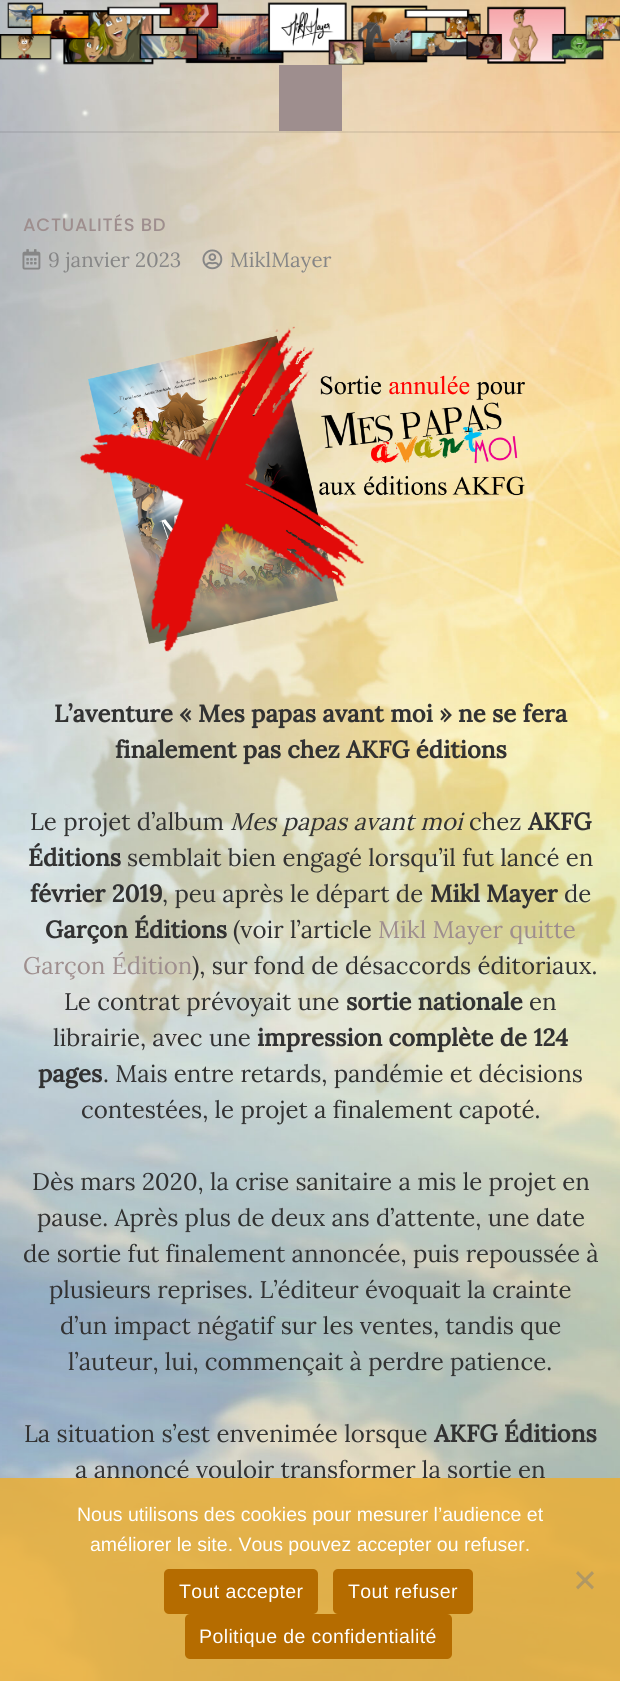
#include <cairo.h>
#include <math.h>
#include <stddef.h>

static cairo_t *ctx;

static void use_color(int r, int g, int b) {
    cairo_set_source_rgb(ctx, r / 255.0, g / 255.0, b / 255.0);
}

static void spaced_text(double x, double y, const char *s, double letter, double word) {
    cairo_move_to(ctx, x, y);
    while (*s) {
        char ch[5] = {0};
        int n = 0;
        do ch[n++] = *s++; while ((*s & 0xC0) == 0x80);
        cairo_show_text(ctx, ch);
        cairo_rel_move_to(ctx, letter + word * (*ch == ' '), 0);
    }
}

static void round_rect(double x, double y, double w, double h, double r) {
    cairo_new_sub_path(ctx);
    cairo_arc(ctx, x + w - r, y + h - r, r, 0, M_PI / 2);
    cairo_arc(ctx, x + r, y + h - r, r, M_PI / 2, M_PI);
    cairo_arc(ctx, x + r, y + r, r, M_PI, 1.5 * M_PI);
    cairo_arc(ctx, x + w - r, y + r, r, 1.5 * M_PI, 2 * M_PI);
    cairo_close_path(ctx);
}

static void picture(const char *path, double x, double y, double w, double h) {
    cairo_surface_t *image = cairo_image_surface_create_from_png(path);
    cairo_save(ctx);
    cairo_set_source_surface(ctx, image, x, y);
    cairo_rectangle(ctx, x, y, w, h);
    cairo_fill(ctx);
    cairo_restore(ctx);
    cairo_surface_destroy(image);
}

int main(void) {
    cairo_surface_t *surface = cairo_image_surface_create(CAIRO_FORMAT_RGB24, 620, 1681);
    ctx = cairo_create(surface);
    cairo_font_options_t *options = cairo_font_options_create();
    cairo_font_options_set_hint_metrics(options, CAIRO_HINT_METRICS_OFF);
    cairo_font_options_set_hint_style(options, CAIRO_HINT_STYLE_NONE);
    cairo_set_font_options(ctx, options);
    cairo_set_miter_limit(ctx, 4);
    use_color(255, 255, 255);
    cairo_paint(ctx);
    picture("img1.png", 0, 0, 620, 1681);
    picture("img2.png", 0, 2, 620, 63);
    cairo_set_source_rgba(ctx, 0, 0, 0, 0.08);
    cairo_rectangle(ctx, 0, 131, 620, 2);
    cairo_fill(ctx);
    use_color(158, 142, 142);
    cairo_rectangle(ctx, 279, 65, 63, 66);
    cairo_fill(ctx);
    cairo_select_font_face(ctx, "Poppins Medium", CAIRO_FONT_SLANT_NORMAL, CAIRO_FONT_WEIGHT_NORMAL);
    cairo_set_font_size(ctx, 18);
    spaced_text(23, 231, "ACTUALITÉS BD", 0.75, 0);
    picture("img3.png", 22, 249, 19, 21);
    cairo_select_font_face(ctx, "Lora", CAIRO_FONT_SLANT_NORMAL, CAIRO_FONT_WEIGHT_NORMAL);
    cairo_set_font_size(ctx, 20.5);
    use_color(134, 134, 134);
    cairo_move_to(ctx, 48, 267);
    cairo_show_text(ctx, "9 janvier 2023");
    picture("img4.png", 202, 249, 21, 21);
    cairo_move_to(ctx, 230, 267);
    cairo_show_text(ctx, "MiklMayer");
    picture("img5.png", 80, 326, 445, 326);
    cairo_select_font_face(ctx, "Lora", CAIRO_FONT_SLANT_NORMAL, CAIRO_FONT_WEIGHT_BOLD);
    cairo_set_font_size(ctx, 24);
    use_color(50, 50, 50);
    cairo_move_to(ctx, 54, 722);
    cairo_show_text(ctx, "L’aventure « Mes papas avant moi » ne se fera");
    cairo_move_to(ctx, 115, 758);
    cairo_show_text(ctx, "finalement pas chez AKFG éditions");
    cairo_select_font_face(ctx, "Lora", CAIRO_FONT_SLANT_NORMAL, CAIRO_FONT_WEIGHT_NORMAL);
    cairo_move_to(ctx, 30, 830);
    cairo_show_text(ctx, "Le projet d’album");
    cairo_select_font_face(ctx, "Lora", CAIRO_FONT_SLANT_ITALIC, CAIRO_FONT_WEIGHT_NORMAL);
    cairo_move_to(ctx, 230, 830);
    cairo_show_text(ctx, "Mes papas avant moi");
    cairo_select_font_face(ctx, "Lora", CAIRO_FONT_SLANT_NORMAL, CAIRO_FONT_WEIGHT_NORMAL);
    cairo_move_to(ctx, 469, 830);
    cairo_show_text(ctx, "chez");
    cairo_select_font_face(ctx, "Lora", CAIRO_FONT_SLANT_NORMAL, CAIRO_FONT_WEIGHT_BOLD);
    cairo_move_to(ctx, 528, 830);
    cairo_show_text(ctx, "AKFG");
    cairo_move_to(ctx, 28, 866);
    cairo_show_text(ctx, "Éditions");
    cairo_select_font_face(ctx, "Lora", CAIRO_FONT_SLANT_NORMAL, CAIRO_FONT_WEIGHT_NORMAL);
    cairo_move_to(ctx, 127, 866);
    cairo_show_text(ctx, "semblait bien engagé lorsqu’il fut lancé en");
    cairo_select_font_face(ctx, "Lora", CAIRO_FONT_SLANT_NORMAL, CAIRO_FONT_WEIGHT_BOLD);
    cairo_move_to(ctx, 30, 902);
    cairo_show_text(ctx, "février 2019");
    cairo_select_font_face(ctx, "Lora", CAIRO_FONT_SLANT_NORMAL, CAIRO_FONT_WEIGHT_NORMAL);
    cairo_move_to(ctx, 162, 902);
    cairo_show_text(ctx, ", peu après le départ de");
    cairo_select_font_face(ctx, "Lora", CAIRO_FONT_SLANT_NORMAL, CAIRO_FONT_WEIGHT_BOLD);
    cairo_move_to(ctx, 430, 902);
    cairo_show_text(ctx, "Mikl Mayer");
    cairo_select_font_face(ctx, "Lora", CAIRO_FONT_SLANT_NORMAL, CAIRO_FONT_WEIGHT_NORMAL);
    cairo_move_to(ctx, 564, 902);
    cairo_show_text(ctx, "de");
    cairo_select_font_face(ctx, "Lora", CAIRO_FONT_SLANT_NORMAL, CAIRO_FONT_WEIGHT_BOLD);
    cairo_move_to(ctx, 45, 938);
    cairo_show_text(ctx, "Garçon Éditions");
    cairo_select_font_face(ctx, "Lora", CAIRO_FONT_SLANT_NORMAL, CAIRO_FONT_WEIGHT_NORMAL);
    cairo_move_to(ctx, 233, 938);
    cairo_show_text(ctx, "(voir l’article");
    use_color(158, 142, 142);
    cairo_move_to(ctx, 378, 938);
    cairo_show_text(ctx, "Mikl Mayer quitte");
    cairo_move_to(ctx, 23, 974);
    cairo_show_text(ctx, "Garçon Édition");
    use_color(50, 50, 50);
    cairo_move_to(ctx, 192, 974);
    cairo_show_text(ctx, "), sur fond de désaccords éditoriaux.");
    cairo_move_to(ctx, 64, 1010);
    cairo_show_text(ctx, "Le contrat prévoyait une");
    cairo_select_font_face(ctx, "Lora", CAIRO_FONT_SLANT_NORMAL, CAIRO_FONT_WEIGHT_BOLD);
    cairo_move_to(ctx, 346, 1010);
    cairo_show_text(ctx, "sortie nationale");
    cairo_select_font_face(ctx, "Lora", CAIRO_FONT_SLANT_NORMAL, CAIRO_FONT_WEIGHT_NORMAL);
    cairo_move_to(ctx, 529, 1010);
    cairo_show_text(ctx, "en");
    cairo_move_to(ctx, 53, 1046);
    cairo_show_text(ctx, "librairie, avec une");
    cairo_select_font_face(ctx, "Lora", CAIRO_FONT_SLANT_NORMAL, CAIRO_FONT_WEIGHT_BOLD);
    cairo_move_to(ctx, 257, 1046);
    cairo_show_text(ctx, "impression complète de 124");
    cairo_move_to(ctx, 38, 1082);
    cairo_show_text(ctx, "pages");
    cairo_select_font_face(ctx, "Lora", CAIRO_FONT_SLANT_NORMAL, CAIRO_FONT_WEIGHT_NORMAL);
    cairo_move_to(ctx, 103, 1082);
    cairo_show_text(ctx, ". Mais entre retards, pandémie et décisions");
    cairo_move_to(ctx, 81, 1118);
    cairo_show_text(ctx, "contestées, le projet a finalement capoté.");
    cairo_move_to(ctx, 32, 1190);
    cairo_show_text(ctx, "Dès mars 2020, la crise sanitaire a mis le projet en");
    cairo_move_to(ctx, 37, 1226);
    cairo_show_text(ctx, "pause. Après plus de deux ans d’attente, une date");
    cairo_move_to(ctx, 23, 1262);
    cairo_show_text(ctx, "de sortie fut finalement annoncée, puis repoussée à");
    cairo_move_to(ctx, 49, 1298);
    cairo_show_text(ctx, "plusieurs reprises. L’éditeur évoquait la crainte");
    cairo_move_to(ctx, 60, 1334);
    cairo_show_text(ctx, "d’un impact négatif sur les ventes, tandis que");
    cairo_move_to(ctx, 68, 1370);
    cairo_show_text(ctx, "l’auteur, lui, commençait à perdre patience.");
    cairo_move_to(ctx, 24, 1442);
    cairo_show_text(ctx, "La situation s’est envenimée lorsque");
    cairo_select_font_face(ctx, "Lora", CAIRO_FONT_SLANT_NORMAL, CAIRO_FONT_WEIGHT_BOLD);
    cairo_move_to(ctx, 434, 1442);
    cairo_show_text(ctx, "AKFG Éditions");
    cairo_select_font_face(ctx, "Lora", CAIRO_FONT_SLANT_NORMAL, CAIRO_FONT_WEIGHT_NORMAL);
    cairo_move_to(ctx, 75, 1478);
    cairo_show_text(ctx, "a annoncé vouloir transformer la sortie en");
    cairo_set_source_rgba(ctx, 0.918, 0.682, 0.208, 0.85);
    cairo_rectangle(ctx, 0, 1478, 620, 203);
    cairo_fill(ctx);
    cairo_select_font_face(ctx, "Liberation Sans", CAIRO_FONT_SLANT_NORMAL, CAIRO_FONT_WEIGHT_NORMAL);
    cairo_set_font_size(ctx, 19.5);
    use_color(255, 255, 255);
    cairo_move_to(ctx, 77, 1521);
    cairo_show_text(ctx, "Nous utilisons des cookies pour mesurer l’audience et");
    cairo_move_to(ctx, 90, 1551);
    cairo_show_text(ctx, "améliorer le site. Vous pouvez accepter ou refuser.");
    cairo_set_source_rgba(ctx, 0.502, 0.502, 0.502, 0.5);
    cairo_new_path(ctx);
    cairo_move_to(ctx, 592, 1571);
    cairo_line_to(ctx, 594, 1573.5);
    cairo_line_to(ctx, 578, 1589.5);
    cairo_line_to(ctx, 576, 1587);
    cairo_close_path(ctx);
    cairo_fill(ctx);
    use_color(176, 152, 100);
    cairo_new_path(ctx);
    cairo_move_to(ctx, 576, 1573.5);
    cairo_line_to(ctx, 578, 1571);
    cairo_line_to(ctx, 594, 1587);
    cairo_line_to(ctx, 592, 1589.5);
    cairo_close_path(ctx);
    cairo_fill(ctx);
    use_color(181, 108, 0);
    round_rect(164, 1569, 154, 45, 5);
    cairo_fill(ctx);
    use_color(255, 255, 255);
    spaced_text(179, 1598, "Tout accepter", 0.4, 0);
    use_color(181, 108, 0);
    round_rect(333, 1569, 140, 45, 5);
    cairo_fill(ctx);
    use_color(255, 255, 255);
    spaced_text(348, 1598, "Tout refuser", 0.4, 0);
    use_color(181, 108, 0);
    round_rect(185, 1614, 267, 45, 5);
    cairo_fill(ctx);
    use_color(255, 255, 255);
    spaced_text(199, 1643, "Politique de confidentialité", 0.4, 0);
    cairo_surface_write_to_png(surface, "result.png");
    cairo_font_options_destroy(options);
    cairo_destroy(ctx);
    cairo_surface_destroy(surface);
    return 0;
}
